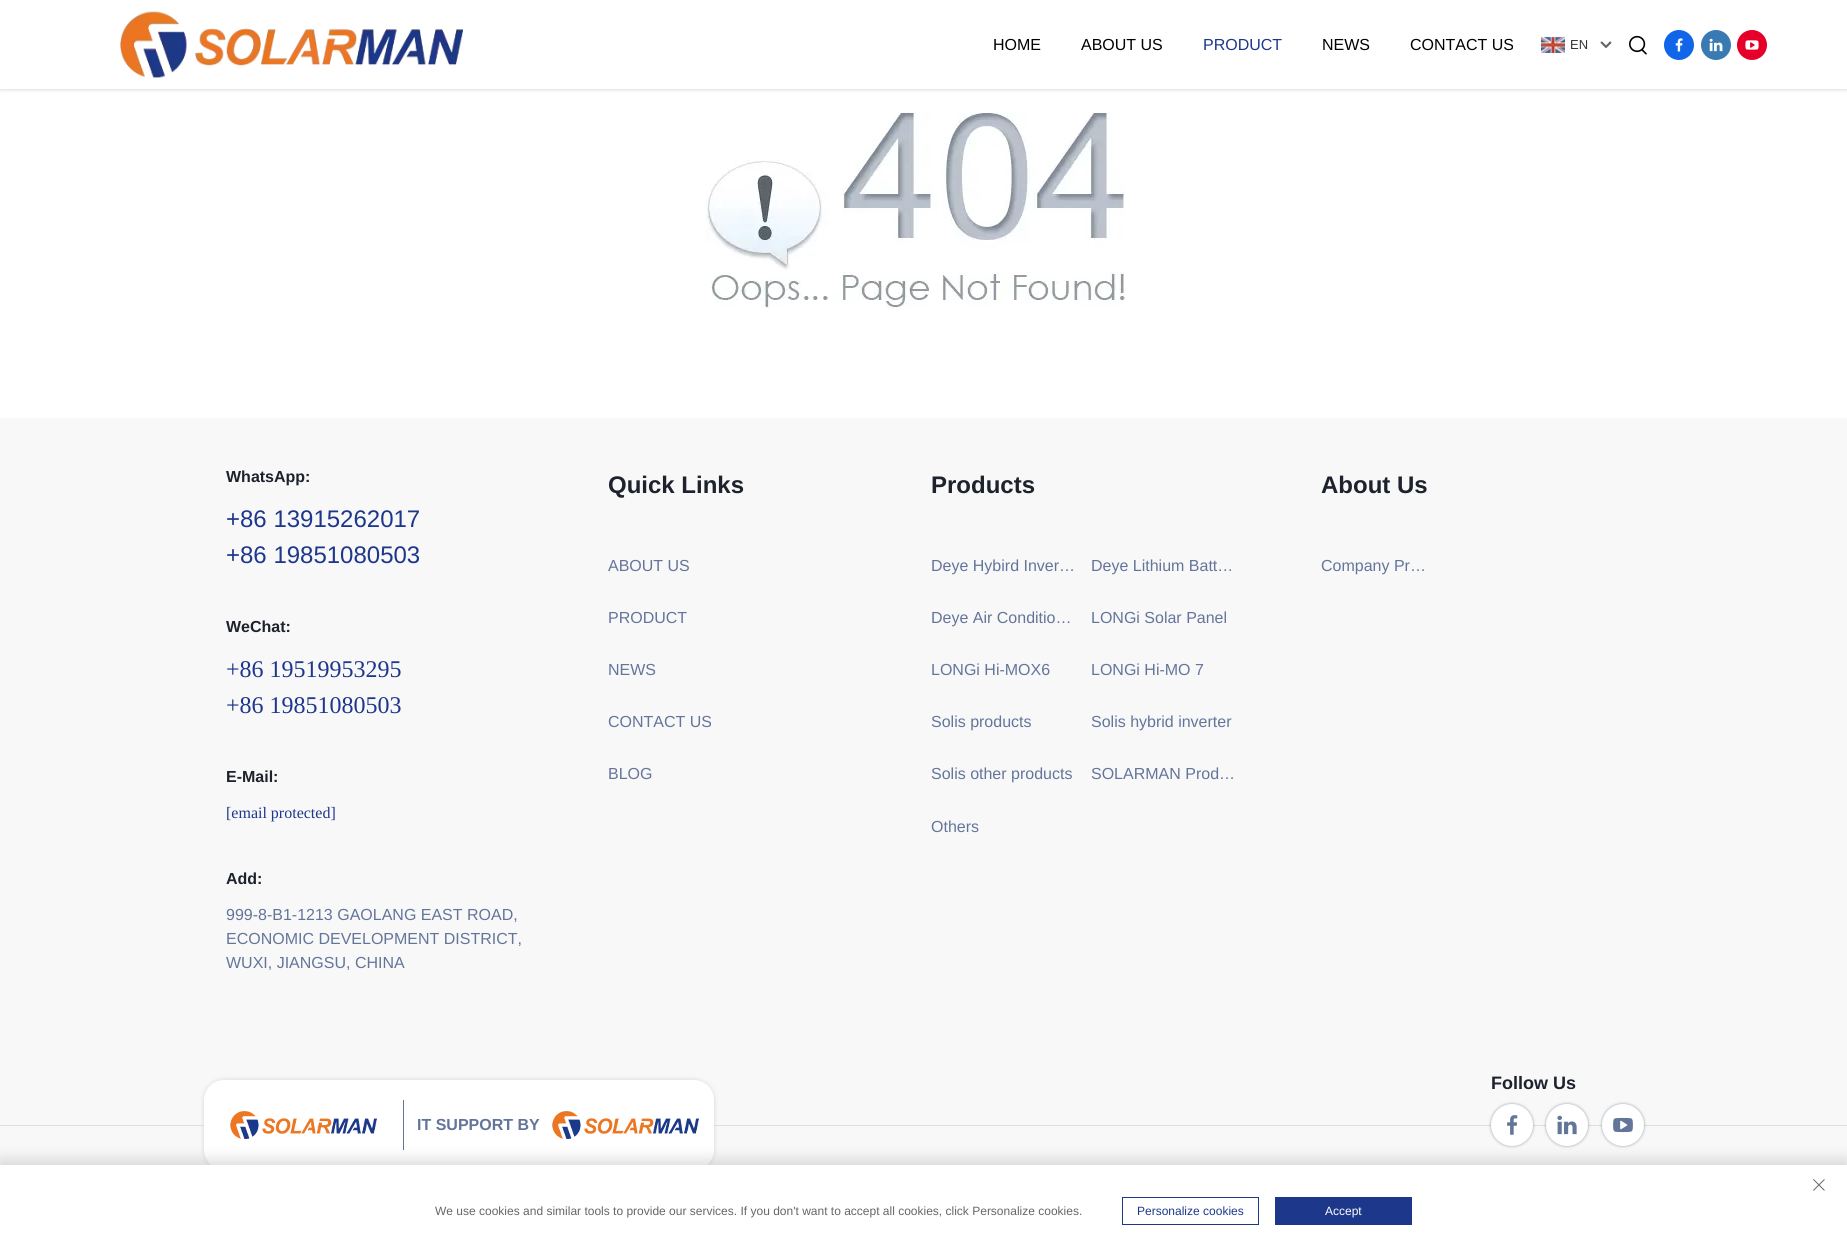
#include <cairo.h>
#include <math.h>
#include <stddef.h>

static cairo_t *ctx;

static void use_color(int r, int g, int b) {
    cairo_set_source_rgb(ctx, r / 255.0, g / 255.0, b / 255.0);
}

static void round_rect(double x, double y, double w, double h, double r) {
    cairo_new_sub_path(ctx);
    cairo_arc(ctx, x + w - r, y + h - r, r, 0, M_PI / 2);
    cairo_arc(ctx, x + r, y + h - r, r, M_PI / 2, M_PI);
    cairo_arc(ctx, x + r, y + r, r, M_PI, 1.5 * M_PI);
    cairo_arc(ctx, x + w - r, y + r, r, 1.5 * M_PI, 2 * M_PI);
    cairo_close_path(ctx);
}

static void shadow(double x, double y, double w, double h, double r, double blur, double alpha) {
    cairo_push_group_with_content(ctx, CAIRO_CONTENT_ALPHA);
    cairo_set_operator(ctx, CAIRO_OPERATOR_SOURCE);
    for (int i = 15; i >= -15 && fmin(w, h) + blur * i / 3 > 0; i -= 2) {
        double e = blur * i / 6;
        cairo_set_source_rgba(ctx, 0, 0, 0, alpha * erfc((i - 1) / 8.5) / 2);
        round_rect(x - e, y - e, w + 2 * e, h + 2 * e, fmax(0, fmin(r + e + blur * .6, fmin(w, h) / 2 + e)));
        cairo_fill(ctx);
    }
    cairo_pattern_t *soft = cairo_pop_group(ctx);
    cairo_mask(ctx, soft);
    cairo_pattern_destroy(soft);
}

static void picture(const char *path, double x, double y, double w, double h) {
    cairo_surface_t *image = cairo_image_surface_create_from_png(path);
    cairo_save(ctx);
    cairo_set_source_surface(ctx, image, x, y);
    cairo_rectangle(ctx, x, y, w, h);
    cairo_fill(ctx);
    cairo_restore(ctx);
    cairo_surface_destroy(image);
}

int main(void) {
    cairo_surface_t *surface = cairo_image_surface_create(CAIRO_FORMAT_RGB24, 1847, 1241);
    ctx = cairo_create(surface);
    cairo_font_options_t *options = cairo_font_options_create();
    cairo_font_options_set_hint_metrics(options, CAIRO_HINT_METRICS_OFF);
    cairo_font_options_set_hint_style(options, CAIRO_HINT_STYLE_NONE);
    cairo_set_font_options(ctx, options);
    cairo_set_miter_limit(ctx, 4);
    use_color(255, 255, 255);
    cairo_paint(ctx);
    cairo_save(ctx);
    cairo_rectangle(ctx, 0, 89, 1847, 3);
    cairo_clip(ctx);
    use_color(0, 0, 0);
    shadow(0, 0, 1847, 89, 0, 2.5, 0.2);
    cairo_restore(ctx);
    picture("img1.png", 120, 11, 343, 67);
    cairo_select_font_face(ctx, "Liberation Sans", CAIRO_FONT_SLANT_NORMAL, CAIRO_FONT_WEIGHT_NORMAL);
    cairo_set_font_size(ctx, 16);
    use_color(0, 0, 0);
    cairo_move_to(ctx, 993, 50);
    cairo_show_text(ctx, "HOME");
    cairo_move_to(ctx, 1081, 50);
    cairo_show_text(ctx, "ABOUT US");
    use_color(29, 55, 139);
    cairo_move_to(ctx, 1203, 50);
    cairo_show_text(ctx, "PRODUCT");
    use_color(0, 0, 0);
    cairo_move_to(ctx, 1322, 50);
    cairo_show_text(ctx, "NEWS");
    cairo_move_to(ctx, 1410, 50);
    cairo_show_text(ctx, "CONTACT US");
    picture("img2.png", 1541, 36, 24, 17);
    cairo_set_font_size(ctx, 13);
    use_color(51, 51, 51);
    cairo_move_to(ctx, 1570, 49);
    cairo_show_text(ctx, "EN");
    picture("img3.png", 1600, 41, 12, 7);
    picture("img4.png", 1629, 35, 18, 20);
    use_color(17, 101, 232);
    cairo_arc(ctx, 1679, 45, 15, 0, 2 * M_PI);
    cairo_fill(ctx);
    picture("img5.png", 1675, 38, 8, 14);
    use_color(57, 122, 178);
    cairo_arc(ctx, 1716, 45, 15, 0, 2 * M_PI);
    cairo_fill(ctx);
    picture("img6.png", 1709, 38, 14, 14);
    use_color(230, 0, 41);
    cairo_arc(ctx, 1752, 45, 15, 0, 2 * M_PI);
    cairo_fill(ctx);
    picture("img7.png", 1745, 40, 14, 10);
    picture("img8.png", 706, 112, 420, 196);
    use_color(248, 248, 248);
    cairo_rectangle(ctx, 0, 418, 1847, 747);
    cairo_fill(ctx);
    cairo_select_font_face(ctx, "Liberation Sans", CAIRO_FONT_SLANT_NORMAL, CAIRO_FONT_WEIGHT_BOLD);
    cairo_set_font_size(ctx, 16);
    use_color(29, 34, 45);
    cairo_move_to(ctx, 226, 482);
    cairo_show_text(ctx, "WhatsApp:");
    cairo_select_font_face(ctx, "Liberation Sans", CAIRO_FONT_SLANT_NORMAL, CAIRO_FONT_WEIGHT_NORMAL);
    cairo_set_font_size(ctx, 24);
    use_color(29, 55, 139);
    cairo_move_to(ctx, 226, 527);
    cairo_show_text(ctx, "+86 13915262017");
    cairo_move_to(ctx, 226, 563);
    cairo_show_text(ctx, "+86 19851080503");
    cairo_select_font_face(ctx, "Liberation Sans", CAIRO_FONT_SLANT_NORMAL, CAIRO_FONT_WEIGHT_BOLD);
    cairo_set_font_size(ctx, 16);
    use_color(29, 34, 45);
    cairo_move_to(ctx, 226, 632);
    cairo_show_text(ctx, "WeChat:");
    cairo_select_font_face(ctx, "Liberation Serif", CAIRO_FONT_SLANT_NORMAL, CAIRO_FONT_WEIGHT_NORMAL);
    cairo_set_font_size(ctx, 24);
    use_color(29, 55, 139);
    cairo_move_to(ctx, 226, 677);
    cairo_show_text(ctx, "+86 19519953295");
    cairo_move_to(ctx, 226, 713);
    cairo_show_text(ctx, "+86 19851080503");
    cairo_select_font_face(ctx, "Liberation Sans", CAIRO_FONT_SLANT_NORMAL, CAIRO_FONT_WEIGHT_BOLD);
    cairo_set_font_size(ctx, 16);
    use_color(29, 34, 45);
    cairo_move_to(ctx, 226, 782);
    cairo_show_text(ctx, "E-Mail:");
    cairo_select_font_face(ctx, "Liberation Serif", CAIRO_FONT_SLANT_NORMAL, CAIRO_FONT_WEIGHT_NORMAL);
    use_color(29, 55, 139);
    cairo_move_to(ctx, 226, 818);
    cairo_show_text(ctx, "[email protected]");
    cairo_select_font_face(ctx, "Liberation Sans", CAIRO_FONT_SLANT_NORMAL, CAIRO_FONT_WEIGHT_BOLD);
    use_color(29, 34, 45);
    cairo_move_to(ctx, 226, 884);
    cairo_show_text(ctx, "Add:");
    cairo_select_font_face(ctx, "Liberation Sans", CAIRO_FONT_SLANT_NORMAL, CAIRO_FONT_WEIGHT_NORMAL);
    use_color(100, 117, 154);
    cairo_move_to(ctx, 226, 920);
    cairo_show_text(ctx, "999-8-B1-1213 GAOLANG EAST ROAD,");
    cairo_move_to(ctx, 226, 944);
    cairo_show_text(ctx, "ECONOMIC DEVELOPMENT DISTRICT,");
    cairo_move_to(ctx, 226, 968);
    cairo_show_text(ctx, "WUXI, JIANGSU, CHINA");
    cairo_select_font_face(ctx, "Liberation Sans", CAIRO_FONT_SLANT_NORMAL, CAIRO_FONT_WEIGHT_BOLD);
    cairo_set_font_size(ctx, 24);
    use_color(29, 34, 45);
    cairo_move_to(ctx, 608, 493);
    cairo_show_text(ctx, "Quick Links");
    cairo_select_font_face(ctx, "Liberation Sans", CAIRO_FONT_SLANT_NORMAL, CAIRO_FONT_WEIGHT_NORMAL);
    cairo_set_font_size(ctx, 16);
    use_color(100, 117, 154);
    cairo_move_to(ctx, 608, 571);
    cairo_show_text(ctx, "ABOUT US");
    cairo_move_to(ctx, 608, 623);
    cairo_show_text(ctx, "PRODUCT");
    cairo_move_to(ctx, 608, 675);
    cairo_show_text(ctx, "NEWS");
    cairo_move_to(ctx, 608, 727);
    cairo_show_text(ctx, "CONTACT US");
    cairo_move_to(ctx, 608, 779);
    cairo_show_text(ctx, "BLOG");
    cairo_select_font_face(ctx, "Liberation Sans", CAIRO_FONT_SLANT_NORMAL, CAIRO_FONT_WEIGHT_BOLD);
    cairo_set_font_size(ctx, 24);
    use_color(29, 34, 45);
    cairo_move_to(ctx, 931, 493);
    cairo_show_text(ctx, "Products");
    cairo_select_font_face(ctx, "Liberation Sans", CAIRO_FONT_SLANT_NORMAL, CAIRO_FONT_WEIGHT_NORMAL);
    cairo_set_font_size(ctx, 16);
    use_color(100, 117, 154);
    cairo_move_to(ctx, 931, 571);
    cairo_show_text(ctx, "Deye Hybird Inver…");
    cairo_move_to(ctx, 1091, 571);
    cairo_show_text(ctx, "Deye Lithium Batt…");
    cairo_move_to(ctx, 931, 623);
    cairo_show_text(ctx, "Deye Air Conditio…");
    cairo_move_to(ctx, 1091, 623);
    cairo_show_text(ctx, "LONGi Solar Panel");
    cairo_move_to(ctx, 931, 675);
    cairo_show_text(ctx, "LONGi Hi-MOX6");
    cairo_move_to(ctx, 1091, 675);
    cairo_show_text(ctx, "LONGi Hi-MO 7");
    cairo_move_to(ctx, 931, 727);
    cairo_show_text(ctx, "Solis products");
    cairo_move_to(ctx, 1091, 727);
    cairo_show_text(ctx, "Solis hybrid inverter");
    cairo_move_to(ctx, 931, 779);
    cairo_show_text(ctx, "Solis other products");
    cairo_move_to(ctx, 1091, 779);
    cairo_show_text(ctx, "SOLARMAN Prod…");
    cairo_move_to(ctx, 931, 832);
    cairo_show_text(ctx, "Others");
    cairo_select_font_face(ctx, "Liberation Sans", CAIRO_FONT_SLANT_NORMAL, CAIRO_FONT_WEIGHT_BOLD);
    cairo_set_font_size(ctx, 24);
    use_color(29, 34, 45);
    cairo_move_to(ctx, 1321, 493);
    cairo_show_text(ctx, "About Us");
    cairo_select_font_face(ctx, "Liberation Sans", CAIRO_FONT_SLANT_NORMAL, CAIRO_FONT_WEIGHT_NORMAL);
    cairo_set_font_size(ctx, 16);
    use_color(100, 117, 154);
    cairo_move_to(ctx, 1321, 571);
    cairo_show_text(ctx, "Company Pr…");
    cairo_select_font_face(ctx, "Liberation Sans", CAIRO_FONT_SLANT_NORMAL, CAIRO_FONT_WEIGHT_BOLD);
    cairo_set_font_size(ctx, 18);
    use_color(29, 34, 45);
    cairo_move_to(ctx, 1491, 1089);
    cairo_show_text(ctx, "Follow Us");
    use_color(222, 222, 222);
    cairo_rectangle(ctx, 0, 1125, 1847, 1);
    cairo_fill(ctx);
    use_color(48, 71, 89);
    shadow(1491, 1104, 42, 42, 21, 1.5, 0.5);
    use_color(255, 255, 255);
    cairo_arc(ctx, 1512, 1125, 21, 0, 2 * M_PI);
    cairo_fill(ctx);
    picture("img9.png", 1507, 1115, 11, 20);
    use_color(48, 71, 89);
    shadow(1546, 1104, 42, 42, 21, 1.5, 0.5);
    use_color(255, 255, 255);
    cairo_arc(ctx, 1567, 1125, 21, 0, 2 * M_PI);
    cairo_fill(ctx);
    picture("img10.png", 1557, 1115, 20, 20);
    use_color(48, 71, 89);
    shadow(1602, 1104, 42, 42, 21, 1.5, 0.5);
    use_color(255, 255, 255);
    cairo_arc(ctx, 1623, 1125, 21, 0, 2 * M_PI);
    cairo_fill(ctx);
    picture("img11.png", 1613, 1117, 20, 16);
    use_color(213, 213, 213);
    shadow(204, 1080, 510, 90, 20, 2.5, 1);
    use_color(255, 255, 255);
    round_rect(204, 1080, 510, 90, 20);
    cairo_fill(ctx);
    use_color(100, 117, 154);
    cairo_rectangle(ctx, 403, 1100, 1, 50);
    cairo_fill(ctx);
    picture("img12.png", 230, 1111, 147, 28);
    cairo_set_font_size(ctx, 16);
    cairo_move_to(ctx, 417, 1130);
    cairo_show_text(ctx, "IT SUPPORT BY");
    picture("img12.png", 552, 1111, 147, 28);
    use_color(0, 0, 0);
    shadow(0, 1161, 1847, 76, 0, 8, 0.16);
    use_color(255, 255, 255);
    cairo_rectangle(ctx, 0, 1165, 1847, 76);
    cairo_fill(ctx);
    picture("img13.png", 1813, 1179, 12, 12);
    cairo_select_font_face(ctx, "Liberation Sans", CAIRO_FONT_SLANT_NORMAL, CAIRO_FONT_WEIGHT_NORMAL);
    cairo_set_font_size(ctx, 12);
    use_color(102, 102, 102);
    cairo_move_to(ctx, 435, 1215);
    cairo_show_text(ctx, "We use cookies and similar tools to provide our services. If you don't want to accept all cookies, click Personalize cookies.");
    cairo_rectangle(ctx, 1122.5, 1197.5, 136, 27);
    use_color(29, 55, 139);
    cairo_set_line_width(ctx, 1);
    cairo_stroke(ctx);
    cairo_move_to(ctx, 1137, 1215);
    cairo_show_text(ctx, "Personalize cookies");
    cairo_rectangle(ctx, 1275, 1197, 137, 28);
    cairo_fill(ctx);
    use_color(255, 255, 255);
    cairo_move_to(ctx, 1325, 1215);
    cairo_show_text(ctx, "Accept");
    cairo_surface_write_to_png(surface, "result.png");
    cairo_font_options_destroy(options);
    cairo_destroy(ctx);
    cairo_surface_destroy(surface);
    return 0;
}
